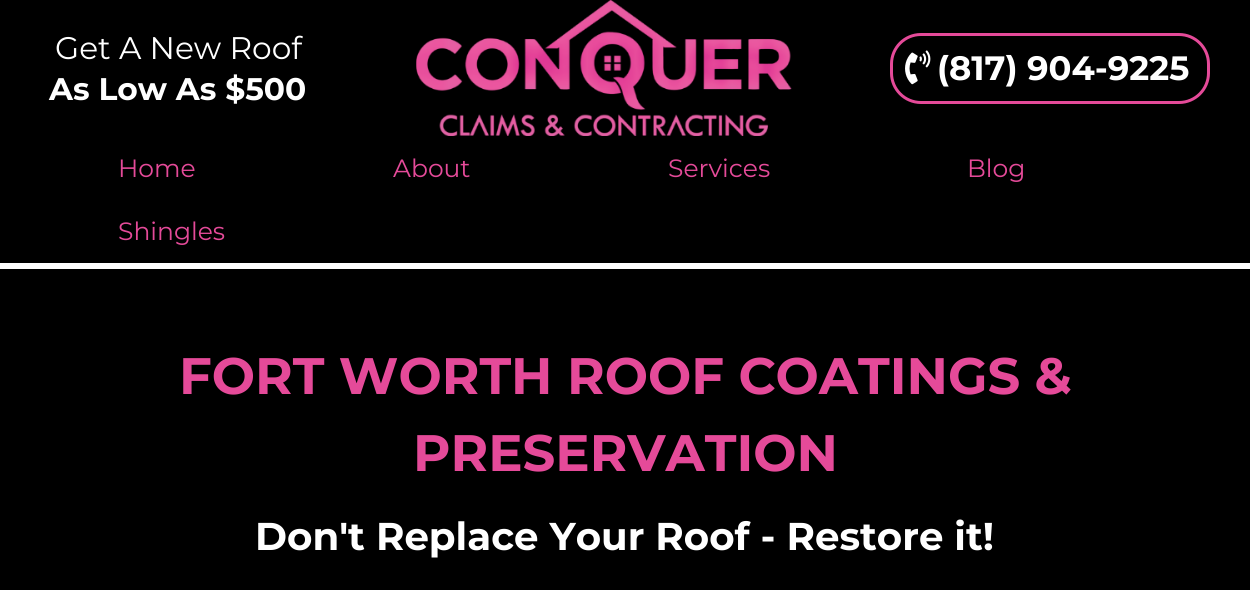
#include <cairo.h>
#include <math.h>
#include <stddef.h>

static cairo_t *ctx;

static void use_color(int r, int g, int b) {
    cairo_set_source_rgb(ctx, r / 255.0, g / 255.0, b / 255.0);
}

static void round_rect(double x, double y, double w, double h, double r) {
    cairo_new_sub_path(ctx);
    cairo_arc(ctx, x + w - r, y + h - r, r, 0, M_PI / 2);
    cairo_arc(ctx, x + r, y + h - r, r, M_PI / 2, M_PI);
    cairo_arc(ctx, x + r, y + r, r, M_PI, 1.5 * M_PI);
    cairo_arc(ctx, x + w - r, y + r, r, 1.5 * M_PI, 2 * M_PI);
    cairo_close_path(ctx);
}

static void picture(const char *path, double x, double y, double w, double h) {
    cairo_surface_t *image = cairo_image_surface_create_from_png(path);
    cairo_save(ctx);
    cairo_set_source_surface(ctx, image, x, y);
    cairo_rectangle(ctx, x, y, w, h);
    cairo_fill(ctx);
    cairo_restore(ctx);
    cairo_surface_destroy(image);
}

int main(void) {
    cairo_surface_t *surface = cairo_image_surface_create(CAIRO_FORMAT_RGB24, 1250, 590);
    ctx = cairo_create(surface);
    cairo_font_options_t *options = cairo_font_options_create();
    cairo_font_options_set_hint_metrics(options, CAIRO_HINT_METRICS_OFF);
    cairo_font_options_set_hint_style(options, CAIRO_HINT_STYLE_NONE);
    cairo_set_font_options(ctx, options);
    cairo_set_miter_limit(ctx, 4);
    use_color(0, 0, 0);
    cairo_paint(ctx);
    use_color(255, 255, 255);
    cairo_rectangle(ctx, 0, 263, 1250, 6);
    cairo_fill(ctx);
    cairo_select_font_face(ctx, "Montserrat", CAIRO_FONT_SLANT_NORMAL, CAIRO_FONT_WEIGHT_NORMAL);
    cairo_set_font_size(ctx, 31.25);
    cairo_move_to(ctx, 55, 59);
    cairo_show_text(ctx, "Get A New Roof");
    cairo_select_font_face(ctx, "Montserrat", CAIRO_FONT_SLANT_NORMAL, CAIRO_FONT_WEIGHT_BOLD);
    cairo_move_to(ctx, 49, 100);
    cairo_show_text(ctx, "As Low As $500");
    picture("img1.png", 416, 0, 376, 136);
    round_rect(891.5, 34.5, 317, 68, 29.5);
    use_color(229, 74, 153);
    cairo_set_line_width(ctx, 3);
    cairo_stroke(ctx);
    picture("img2.png", 905, 50, 26, 35);
    cairo_set_font_size(ctx, 33.75);
    use_color(255, 255, 255);
    cairo_move_to(ctx, 937, 80);
    cairo_show_text(ctx, "(817) 904-9225");
    cairo_select_font_face(ctx, "Montserrat", CAIRO_FONT_SLANT_NORMAL, CAIRO_FONT_WEIGHT_NORMAL);
    cairo_set_font_size(ctx, 25);
    use_color(229, 74, 153);
    cairo_move_to(ctx, 118, 177);
    cairo_show_text(ctx, "Home");
    cairo_move_to(ctx, 393, 177);
    cairo_show_text(ctx, "About");
    cairo_move_to(ctx, 668, 177);
    cairo_show_text(ctx, "Services");
    cairo_move_to(ctx, 967, 177);
    cairo_show_text(ctx, "Blog");
    cairo_move_to(ctx, 118, 240);
    cairo_show_text(ctx, "Shingles");
    cairo_select_font_face(ctx, "Montserrat", CAIRO_FONT_SLANT_NORMAL, CAIRO_FONT_WEIGHT_BOLD);
    cairo_set_font_size(ctx, 51.25);
    cairo_move_to(ctx, 179, 394);
    cairo_show_text(ctx, "FORT WORTH ROOF COATINGS &");
    cairo_move_to(ctx, 413, 471);
    cairo_show_text(ctx, "PRESERVATION");
    cairo_set_font_size(ctx, 38.75);
    use_color(255, 255, 255);
    cairo_move_to(ctx, 255, 550);
    cairo_show_text(ctx, "Don't Replace Your Roof - Restore it!");
    cairo_surface_write_to_png(surface, "result.png");
    cairo_font_options_destroy(options);
    cairo_destroy(ctx);
    cairo_surface_destroy(surface);
    return 0;
}
